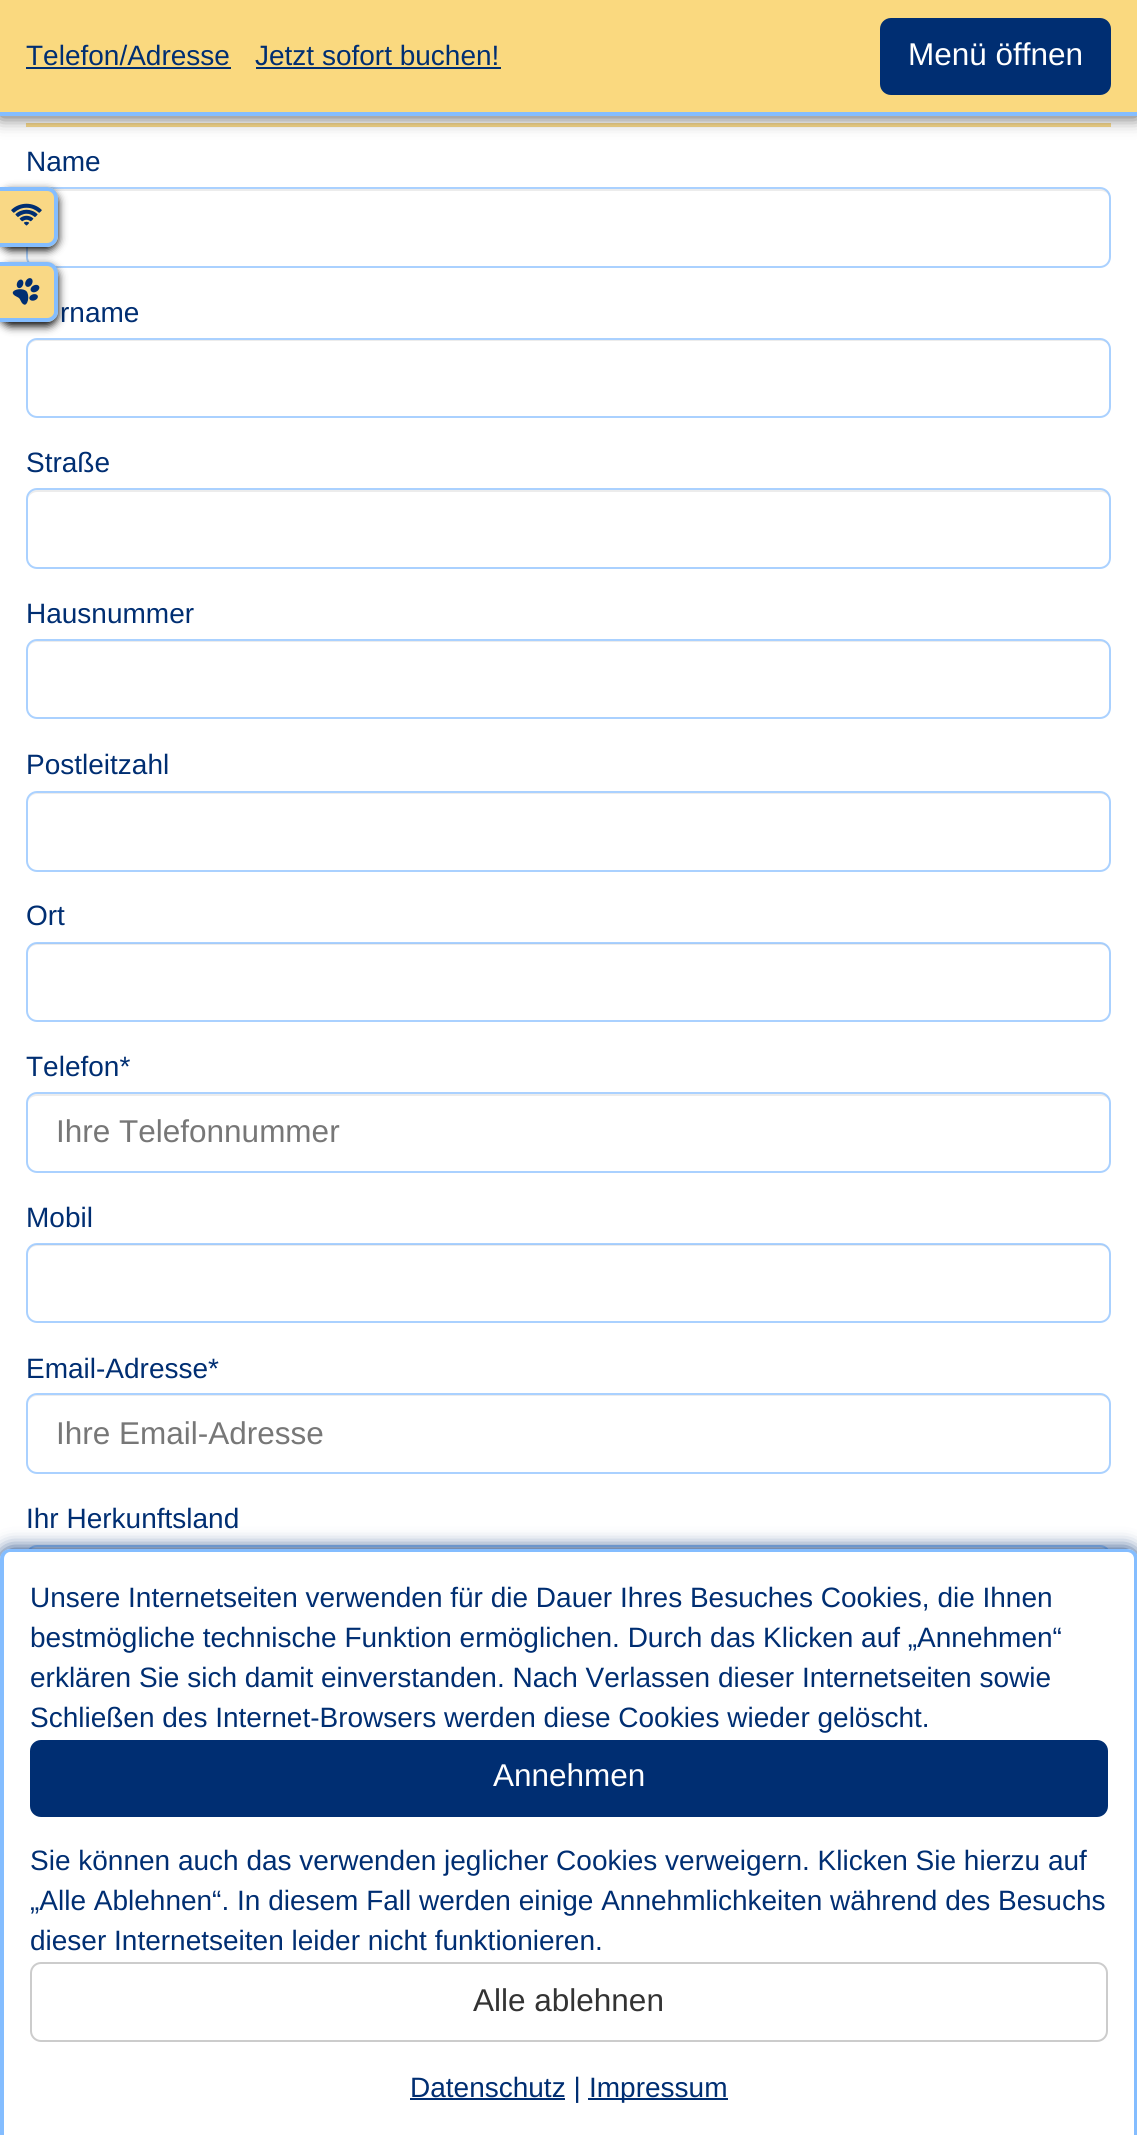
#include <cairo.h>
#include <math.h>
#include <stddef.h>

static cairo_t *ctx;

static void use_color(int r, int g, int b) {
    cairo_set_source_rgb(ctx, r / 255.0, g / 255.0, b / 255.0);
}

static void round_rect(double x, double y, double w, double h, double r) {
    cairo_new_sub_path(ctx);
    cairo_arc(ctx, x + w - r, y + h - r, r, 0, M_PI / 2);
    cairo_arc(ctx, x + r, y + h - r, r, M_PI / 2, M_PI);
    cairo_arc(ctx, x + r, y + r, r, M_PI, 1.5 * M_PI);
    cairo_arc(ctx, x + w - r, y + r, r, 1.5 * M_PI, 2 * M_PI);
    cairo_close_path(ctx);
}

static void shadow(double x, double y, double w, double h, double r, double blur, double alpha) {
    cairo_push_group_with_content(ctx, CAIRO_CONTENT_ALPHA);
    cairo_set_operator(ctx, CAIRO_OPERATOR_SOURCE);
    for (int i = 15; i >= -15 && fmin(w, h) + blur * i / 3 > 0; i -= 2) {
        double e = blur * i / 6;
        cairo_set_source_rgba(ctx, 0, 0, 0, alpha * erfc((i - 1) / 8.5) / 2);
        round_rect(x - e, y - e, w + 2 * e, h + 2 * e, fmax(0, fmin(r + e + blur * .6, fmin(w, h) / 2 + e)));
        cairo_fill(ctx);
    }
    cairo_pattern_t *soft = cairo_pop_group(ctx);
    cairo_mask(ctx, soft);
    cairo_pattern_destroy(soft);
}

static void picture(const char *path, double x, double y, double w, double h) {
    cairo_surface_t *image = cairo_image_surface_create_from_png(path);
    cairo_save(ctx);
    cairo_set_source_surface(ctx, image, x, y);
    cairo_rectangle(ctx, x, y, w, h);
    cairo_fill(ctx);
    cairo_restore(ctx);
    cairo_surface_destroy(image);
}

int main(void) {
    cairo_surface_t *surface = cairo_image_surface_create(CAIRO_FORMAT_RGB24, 1137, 2135);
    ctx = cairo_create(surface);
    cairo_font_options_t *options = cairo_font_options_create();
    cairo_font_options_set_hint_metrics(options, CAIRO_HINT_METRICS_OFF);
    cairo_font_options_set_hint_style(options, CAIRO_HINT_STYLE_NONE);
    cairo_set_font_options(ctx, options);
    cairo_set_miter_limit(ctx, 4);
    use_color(255, 255, 255);
    cairo_paint(ctx);
    use_color(249, 216, 133);
    cairo_rectangle(ctx, 26, 123, 1085, 4);
    cairo_fill(ctx);
    use_color(85, 85, 85);
    shadow(0, 2, 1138, 115, 0, 9, 1);
    use_color(250, 217, 127);
    cairo_rectangle(ctx, 0, 0, 1137, 112);
    cairo_fill(ctx);
    use_color(132, 189, 255);
    cairo_rectangle(ctx, 0, 112, 1137, 4);
    cairo_fill(ctx);
    cairo_select_font_face(ctx, "Liberation Sans", CAIRO_FONT_SLANT_NORMAL, CAIRO_FONT_WEIGHT_NORMAL);
    cairo_set_font_size(ctx, 28);
    use_color(0, 46, 114);
    cairo_move_to(ctx, 26, 65);
    cairo_show_text(ctx, "Telefon/Adresse");
    cairo_rectangle(ctx, 26, 67, 205, 2);
    cairo_fill(ctx);
    cairo_move_to(ctx, 255, 65);
    cairo_show_text(ctx, "Jetzt sofort buchen!");
    cairo_rectangle(ctx, 256, 67, 245, 2);
    cairo_fill(ctx);
    round_rect(880, 18, 231, 77, 11);
    cairo_fill(ctx);
    cairo_set_font_size(ctx, 31.5);
    use_color(255, 255, 255);
    cairo_move_to(ctx, 908, 65);
    cairo_show_text(ctx, "Menü öffnen");
    cairo_set_font_size(ctx, 28);
    use_color(0, 46, 114);
    cairo_move_to(ctx, 26, 171);
    cairo_show_text(ctx, "Name");
    use_color(236, 236, 236);
    cairo_new_path(ctx);
    cairo_move_to(ctx, 37, 191);
    cairo_line_to(ctx, 1101, 191);
    cairo_curve_to(ctx, 1106, 191, 1110, 195, 1110, 200);
    cairo_curve_to(ctx, 1110, 194, 1107, 189, 1101, 189);
    cairo_line_to(ctx, 37, 189);
    cairo_curve_to(ctx, 31, 189, 28, 194, 28, 200);
    cairo_curve_to(ctx, 28, 195, 32, 191, 37, 191);
    cairo_close_path(ctx);
    cairo_fill(ctx);
    round_rect(27, 188, 1083, 79, 10);
    cairo_set_source_rgba(ctx, 0.525, 0.745, 1, 0.7);
    cairo_stroke(ctx);
    use_color(0, 46, 114);
    cairo_move_to(ctx, 60, 322);
    cairo_show_text(ctx, "rname");
    use_color(236, 236, 236);
    cairo_new_path(ctx);
    cairo_move_to(ctx, 37, 341);
    cairo_line_to(ctx, 1101, 341);
    cairo_curve_to(ctx, 1106, 341, 1110, 345, 1110, 350);
    cairo_curve_to(ctx, 1110, 345, 1107, 340, 1101, 340);
    cairo_line_to(ctx, 37, 340);
    cairo_curve_to(ctx, 31, 340, 28, 345, 28, 350);
    cairo_curve_to(ctx, 28, 345, 32, 341, 37, 341);
    cairo_close_path(ctx);
    cairo_fill(ctx);
    round_rect(27, 339, 1083, 78, 10);
    cairo_set_source_rgba(ctx, 0.525, 0.745, 1, 0.7);
    cairo_stroke(ctx);
    use_color(0, 46, 114);
    cairo_move_to(ctx, 26, 472);
    cairo_show_text(ctx, "Straße");
    use_color(236, 236, 236);
    cairo_new_path(ctx);
    cairo_move_to(ctx, 37, 492);
    cairo_line_to(ctx, 1101, 492);
    cairo_curve_to(ctx, 1106, 492, 1110, 496, 1110, 500);
    cairo_curve_to(ctx, 1110, 495, 1107, 490, 1101, 490);
    cairo_line_to(ctx, 37, 490);
    cairo_curve_to(ctx, 31, 490, 28, 495, 28, 500);
    cairo_curve_to(ctx, 28, 496, 32, 492, 37, 492);
    cairo_close_path(ctx);
    cairo_fill(ctx);
    round_rect(27, 489, 1083, 79, 10);
    cairo_set_source_rgba(ctx, 0.525, 0.745, 1, 0.7);
    cairo_stroke(ctx);
    use_color(0, 46, 114);
    cairo_move_to(ctx, 26, 623);
    cairo_show_text(ctx, "Hausnummer");
    use_color(236, 236, 236);
    cairo_new_path(ctx);
    cairo_move_to(ctx, 37, 642);
    cairo_line_to(ctx, 1101, 642);
    cairo_curve_to(ctx, 1106, 642, 1110, 646, 1110, 651);
    cairo_curve_to(ctx, 1110, 646, 1107, 641, 1101, 641);
    cairo_line_to(ctx, 37, 641);
    cairo_curve_to(ctx, 31, 641, 28, 646, 28, 651);
    cairo_curve_to(ctx, 28, 646, 32, 642, 37, 642);
    cairo_close_path(ctx);
    cairo_fill(ctx);
    round_rect(27, 640, 1083, 78, 10);
    cairo_set_source_rgba(ctx, 0.525, 0.745, 1, 0.7);
    cairo_stroke(ctx);
    use_color(0, 46, 114);
    cairo_move_to(ctx, 26, 774);
    cairo_show_text(ctx, "Postleitzahl");
    use_color(236, 236, 236);
    cairo_new_path(ctx);
    cairo_move_to(ctx, 37, 794);
    cairo_line_to(ctx, 1101, 794);
    cairo_curve_to(ctx, 1106, 794, 1110, 798, 1110, 803);
    cairo_curve_to(ctx, 1110, 798, 1107, 793, 1101, 793);
    cairo_line_to(ctx, 37, 793);
    cairo_curve_to(ctx, 31, 793, 28, 798, 28, 803);
    cairo_curve_to(ctx, 28, 798, 32, 794, 37, 794);
    cairo_close_path(ctx);
    cairo_fill(ctx);
    round_rect(27, 792, 1083, 79, 10);
    cairo_set_source_rgba(ctx, 0.525, 0.745, 1, 0.7);
    cairo_stroke(ctx);
    use_color(0, 46, 114);
    cairo_move_to(ctx, 26, 925);
    cairo_show_text(ctx, "Ort");
    use_color(236, 236, 236);
    cairo_new_path(ctx);
    cairo_move_to(ctx, 37, 945);
    cairo_line_to(ctx, 1101, 945);
    cairo_curve_to(ctx, 1106, 945, 1110, 949, 1110, 954);
    cairo_curve_to(ctx, 1110, 948, 1107, 943, 1101, 943);
    cairo_line_to(ctx, 37, 943);
    cairo_curve_to(ctx, 31, 943, 28, 948, 28, 954);
    cairo_curve_to(ctx, 28, 949, 32, 945, 37, 945);
    cairo_close_path(ctx);
    cairo_fill(ctx);
    round_rect(27, 943, 1083, 78, 10);
    cairo_set_source_rgba(ctx, 0.525, 0.745, 1, 0.7);
    cairo_stroke(ctx);
    use_color(0, 46, 114);
    cairo_move_to(ctx, 26, 1076);
    cairo_show_text(ctx, "Telefon*");
    use_color(236, 236, 236);
    cairo_new_path(ctx);
    cairo_move_to(ctx, 37, 1096);
    cairo_line_to(ctx, 1101, 1096);
    cairo_curve_to(ctx, 1106, 1096, 1110, 1099, 1110, 1104);
    cairo_curve_to(ctx, 1110, 1099, 1107, 1094, 1101, 1094);
    cairo_line_to(ctx, 37, 1094);
    cairo_curve_to(ctx, 31, 1094, 28, 1099, 28, 1104);
    cairo_curve_to(ctx, 28, 1099, 32, 1096, 37, 1096);
    cairo_close_path(ctx);
    cairo_fill(ctx);
    round_rect(27, 1093, 1083, 79, 10);
    cairo_set_source_rgba(ctx, 0.525, 0.745, 1, 0.7);
    cairo_stroke(ctx);
    cairo_set_font_size(ctx, 31.5);
    use_color(119, 119, 119);
    cairo_move_to(ctx, 56, 1142);
    cairo_show_text(ctx, "Ihre Telefonnummer");
    cairo_set_font_size(ctx, 28);
    use_color(0, 46, 114);
    cairo_move_to(ctx, 26, 1227);
    cairo_show_text(ctx, "Mobil");
    use_color(236, 236, 236);
    cairo_new_path(ctx);
    cairo_move_to(ctx, 37, 1246);
    cairo_line_to(ctx, 1101, 1246);
    cairo_curve_to(ctx, 1106, 1246, 1110, 1250, 1110, 1255);
    cairo_curve_to(ctx, 1110, 1249, 1107, 1244, 1101, 1244);
    cairo_line_to(ctx, 37, 1244);
    cairo_curve_to(ctx, 31, 1244, 28, 1249, 28, 1255);
    cairo_curve_to(ctx, 28, 1250, 32, 1246, 37, 1246);
    cairo_close_path(ctx);
    cairo_fill(ctx);
    round_rect(27, 1244, 1083, 78, 10);
    cairo_set_source_rgba(ctx, 0.525, 0.745, 1, 0.7);
    cairo_stroke(ctx);
    use_color(0, 46, 114);
    cairo_move_to(ctx, 26, 1378);
    cairo_show_text(ctx, "Email-Adresse*");
    use_color(236, 236, 236);
    cairo_new_path(ctx);
    cairo_move_to(ctx, 37, 1396);
    cairo_line_to(ctx, 1101, 1396);
    cairo_curve_to(ctx, 1106, 1396, 1110, 1400, 1110, 1405);
    cairo_curve_to(ctx, 1110, 1400, 1107, 1395, 1101, 1395);
    cairo_line_to(ctx, 37, 1395);
    cairo_curve_to(ctx, 31, 1395, 28, 1400, 28, 1405);
    cairo_curve_to(ctx, 28, 1400, 32, 1396, 37, 1396);
    cairo_close_path(ctx);
    cairo_fill(ctx);
    round_rect(27, 1394, 1083, 79, 10);
    cairo_set_source_rgba(ctx, 0.525, 0.745, 1, 0.7);
    cairo_stroke(ctx);
    cairo_set_font_size(ctx, 31.5);
    use_color(119, 119, 119);
    cairo_move_to(ctx, 56, 1444);
    cairo_show_text(ctx, "Ihre Email-Adresse");
    cairo_set_font_size(ctx, 28);
    use_color(0, 46, 114);
    cairo_move_to(ctx, 26, 1528);
    cairo_show_text(ctx, "Ihr Herkunftsland");
    use_color(236, 236, 236);
    cairo_new_path(ctx);
    cairo_move_to(ctx, 37, 1549);
    cairo_line_to(ctx, 1101, 1549);
    cairo_curve_to(ctx, 1106, 1549, 1110, 1553, 1110, 1558);
    cairo_curve_to(ctx, 1110, 1552, 1107, 1547, 1101, 1547);
    cairo_line_to(ctx, 37, 1547);
    cairo_curve_to(ctx, 31, 1547, 28, 1552, 28, 1558);
    cairo_curve_to(ctx, 28, 1553, 32, 1549, 37, 1549);
    cairo_close_path(ctx);
    cairo_fill(ctx);
    round_rect(27, 1546, 1083, 79, 10);
    cairo_set_source_rgba(ctx, 0.525, 0.745, 1, 0.7);
    cairo_stroke(ctx);
    use_color(0, 0, 0);
    shadow(0, 191, 58, 59, 11, 4.5, 1);
    use_color(249, 216, 133);
    cairo_new_path(ctx);
    cairo_move_to(ctx, 0, 187);
    cairo_line_to(ctx, 47, 187);
    cairo_curve_to(ctx, 53, 187, 58, 192, 58, 198);
    cairo_line_to(ctx, 58, 236);
    cairo_curve_to(ctx, 58, 242, 53, 247, 47, 247);
    cairo_line_to(ctx, 0, 247);
    cairo_close_path(ctx);
    cairo_fill(ctx);
    use_color(132, 189, 255);
    cairo_set_fill_rule(ctx, CAIRO_FILL_RULE_EVEN_ODD);
    cairo_new_path(ctx);
    cairo_move_to(ctx, 0, 187);
    cairo_line_to(ctx, 47, 187);
    cairo_curve_to(ctx, 53, 187, 58, 192, 58, 198);
    cairo_line_to(ctx, 58, 236);
    cairo_curve_to(ctx, 58, 242, 53, 247, 47, 247);
    cairo_line_to(ctx, 0, 247);
    cairo_close_path(ctx);
    cairo_move_to(ctx, 0, 191);
    cairo_line_to(ctx, 47, 191);
    cairo_curve_to(ctx, 51, 191, 54, 194, 54, 198);
    cairo_line_to(ctx, 54, 236);
    cairo_curve_to(ctx, 54, 240, 51, 243, 47, 243);
    cairo_line_to(ctx, 0, 243);
    cairo_close_path(ctx);
    cairo_fill(ctx);
    picture("img1.png", 11, 203, 31, 23);
    use_color(0, 0, 0);
    shadow(0, 266, 58, 60, 11, 4.5, 1);
    use_color(249, 216, 133);
    cairo_new_path(ctx);
    cairo_move_to(ctx, 0, 263);
    cairo_line_to(ctx, 47, 263);
    cairo_curve_to(ctx, 53, 263, 58, 268, 58, 274);
    cairo_line_to(ctx, 58, 311);
    cairo_curve_to(ctx, 58, 317, 53, 322, 47, 322);
    cairo_line_to(ctx, 0, 322);
    cairo_close_path(ctx);
    cairo_fill(ctx);
    use_color(132, 189, 255);
    cairo_new_path(ctx);
    cairo_move_to(ctx, 0, 262);
    cairo_line_to(ctx, 47, 262);
    cairo_curve_to(ctx, 53, 262, 58, 267, 58, 273);
    cairo_line_to(ctx, 58, 312);
    cairo_curve_to(ctx, 58, 317, 53, 322, 47, 322);
    cairo_line_to(ctx, 0, 322);
    cairo_close_path(ctx);
    cairo_move_to(ctx, 0, 266);
    cairo_line_to(ctx, 47, 266);
    cairo_curve_to(ctx, 51, 266, 54, 269, 54, 273);
    cairo_line_to(ctx, 54, 312);
    cairo_curve_to(ctx, 54, 315, 51, 318, 47, 318);
    cairo_line_to(ctx, 0, 318);
    cairo_close_path(ctx);
    cairo_fill(ctx);
    picture("img2.png", 12, 278, 28, 27);
    use_color(0, 46, 114);
    shadow(0, 1549, 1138, 586, 11, 9, 1);
    use_color(255, 255, 255);
    cairo_new_path(ctx);
    cairo_move_to(ctx, 11, 1549);
    cairo_line_to(ctx, 1127, 1549);
    cairo_curve_to(ctx, 1133, 1549, 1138, 1554, 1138, 1560);
    cairo_line_to(ctx, 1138, 2135);
    cairo_line_to(ctx, 0, 2135);
    cairo_line_to(ctx, 0, 1560);
    cairo_curve_to(ctx, 0, 1554, 5, 1549, 11, 1549);
    cairo_close_path(ctx);
    cairo_fill(ctx);
    use_color(132, 189, 255);
    cairo_new_path(ctx);
    cairo_move_to(ctx, 10, 1549);
    cairo_line_to(ctx, 1127, 1549);
    cairo_curve_to(ctx, 1133, 1549, 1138, 1553, 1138, 1559);
    cairo_line_to(ctx, 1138, 2135);
    cairo_line_to(ctx, 0, 2135);
    cairo_line_to(ctx, 0, 1559);
    cairo_curve_to(ctx, 0, 1553, 5, 1549, 10, 1549);
    cairo_close_path(ctx);
    cairo_move_to(ctx, 10, 1552);
    cairo_line_to(ctx, 1127, 1552);
    cairo_curve_to(ctx, 1131, 1552, 1134, 1555, 1134, 1559);
    cairo_line_to(ctx, 1134, 2135);
    cairo_line_to(ctx, 4, 2135);
    cairo_line_to(ctx, 4, 1559);
    cairo_curve_to(ctx, 4, 1555, 7, 1552, 10, 1552);
    cairo_close_path(ctx);
    cairo_fill(ctx);
    use_color(0, 46, 114);
    cairo_move_to(ctx, 30, 1607);
    cairo_show_text(ctx, "Unsere Internetseiten verwenden für die Dauer Ihres Besuches Cookies, die Ihnen");
    cairo_move_to(ctx, 30, 1647);
    cairo_show_text(ctx, "bestmögliche technische Funktion ermöglichen. Durch das Klicken auf „Annehmen“");
    cairo_move_to(ctx, 30, 1687);
    cairo_show_text(ctx, "erklären Sie sich damit einverstanden. Nach Verlassen dieser Internetseiten sowie");
    cairo_move_to(ctx, 30, 1727);
    cairo_show_text(ctx, "Schließen des Internet-Browsers werden diese Cookies wieder gelöscht.");
    round_rect(30, 1740, 1078, 77, 11);
    cairo_fill(ctx);
    cairo_set_font_size(ctx, 31.5);
    use_color(255, 255, 255);
    cairo_move_to(ctx, 493, 1786);
    cairo_show_text(ctx, "Annehmen");
    cairo_set_font_size(ctx, 28);
    use_color(0, 46, 114);
    cairo_move_to(ctx, 30, 1870);
    cairo_show_text(ctx, "Sie können auch das verwenden jeglicher Cookies verweigern. Klicken Sie hierzu auf");
    cairo_move_to(ctx, 30, 1910);
    cairo_show_text(ctx, "„Alle Ablehnen“. In diesem Fall werden einige Annehmlichkeiten während des Besuchs");
    cairo_move_to(ctx, 30, 1950);
    cairo_show_text(ctx, "dieser Internetseiten leider nicht funktionieren.");
    round_rect(31, 1963, 1076, 78, 10);
    use_color(204, 204, 204);
    cairo_stroke(ctx);
    cairo_set_font_size(ctx, 31.5);
    use_color(51, 51, 51);
    cairo_move_to(ctx, 473, 2011);
    cairo_show_text(ctx, "Alle ablehnen");
    use_color(0, 46, 114);
    cairo_rectangle(ctx, 410, 2098, 155, 2);
    cairo_fill(ctx);
    cairo_set_font_size(ctx, 28);
    cairo_move_to(ctx, 410, 2097);
    cairo_show_text(ctx, "Datenschutz |");
    cairo_rectangle(ctx, 588, 2098, 140, 2);
    cairo_fill(ctx);
    cairo_move_to(ctx, 589, 2097);
    cairo_show_text(ctx, "Impressum");
    cairo_surface_write_to_png(surface, "result.png");
    cairo_font_options_destroy(options);
    cairo_destroy(ctx);
    cairo_surface_destroy(surface);
    return 0;
}
